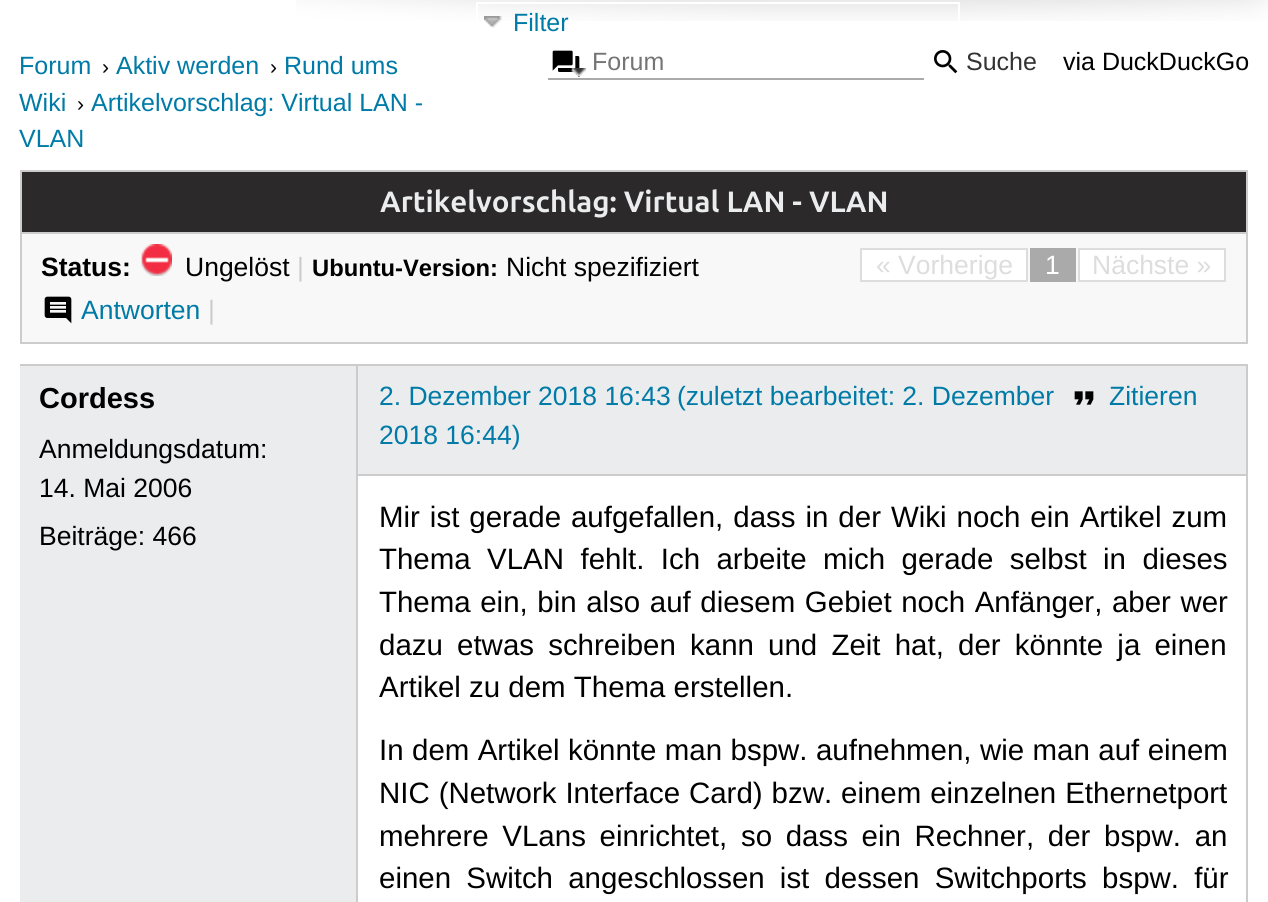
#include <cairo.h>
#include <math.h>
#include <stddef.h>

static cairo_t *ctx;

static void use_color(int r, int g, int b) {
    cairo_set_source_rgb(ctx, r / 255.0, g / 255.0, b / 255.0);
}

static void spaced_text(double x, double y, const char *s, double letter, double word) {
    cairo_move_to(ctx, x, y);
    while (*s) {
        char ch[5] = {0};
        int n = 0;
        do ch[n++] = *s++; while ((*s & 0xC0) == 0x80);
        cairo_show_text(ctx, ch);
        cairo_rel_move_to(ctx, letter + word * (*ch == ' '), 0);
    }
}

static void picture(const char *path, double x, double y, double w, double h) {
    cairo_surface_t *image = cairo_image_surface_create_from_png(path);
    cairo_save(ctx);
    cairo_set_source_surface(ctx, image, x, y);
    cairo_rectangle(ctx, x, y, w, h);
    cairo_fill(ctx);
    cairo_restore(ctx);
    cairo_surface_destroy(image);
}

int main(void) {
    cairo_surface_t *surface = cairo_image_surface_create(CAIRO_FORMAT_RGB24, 1268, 902);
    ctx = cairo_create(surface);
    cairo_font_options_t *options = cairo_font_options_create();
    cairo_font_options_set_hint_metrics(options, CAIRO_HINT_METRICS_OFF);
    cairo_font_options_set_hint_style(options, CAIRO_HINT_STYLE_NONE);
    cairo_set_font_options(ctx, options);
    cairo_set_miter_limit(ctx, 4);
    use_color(255, 255, 255);
    cairo_paint(ctx);
    picture("img1.png", 296, 0, 972, 21);
    cairo_rectangle(ctx, 477, 3, 482, 46);
    use_color(255, 255, 255);
    cairo_stroke(ctx);
    picture("img2.png", 484, 16, 18, 12);
    cairo_select_font_face(ctx, "Liberation Sans", CAIRO_FONT_SLANT_NORMAL, CAIRO_FONT_WEIGHT_NORMAL);
    cairo_set_font_size(ctx, 25);
    use_color(0, 122, 166);
    cairo_move_to(ctx, 513, 31);
    cairo_show_text(ctx, "Filter");
    cairo_move_to(ctx, 19, 74);
    cairo_show_text(ctx, "Forum");
    cairo_set_font_size(ctx, 21);
    use_color(0, 0, 0);
    cairo_move_to(ctx, 102, 74);
    cairo_show_text(ctx, "›");
    cairo_set_font_size(ctx, 25);
    use_color(0, 122, 166);
    cairo_move_to(ctx, 116, 74);
    cairo_show_text(ctx, "Aktiv werden");
    cairo_set_font_size(ctx, 21);
    use_color(0, 0, 0);
    cairo_move_to(ctx, 270, 74);
    cairo_show_text(ctx, "›");
    cairo_set_font_size(ctx, 25);
    use_color(0, 122, 166);
    cairo_move_to(ctx, 284, 74);
    cairo_show_text(ctx, "Rund ums");
    cairo_move_to(ctx, 19, 111);
    cairo_show_text(ctx, "Wiki");
    cairo_set_font_size(ctx, 21);
    use_color(0, 0, 0);
    cairo_move_to(ctx, 77, 111);
    cairo_show_text(ctx, "›");
    cairo_set_font_size(ctx, 25);
    use_color(0, 122, 166);
    cairo_move_to(ctx, 91, 111);
    cairo_show_text(ctx, "Artikelvorschlag: Virtual LAN -");
    cairo_move_to(ctx, 19, 147);
    cairo_show_text(ctx, "VLAN");
    picture("img3.png", 552, 50, 28, 28);
    use_color(170, 170, 170);
    cairo_rectangle(ctx, 548, 78, 376, 2);
    cairo_fill(ctx);
    use_color(117, 117, 117);
    cairo_move_to(ctx, 592, 70);
    cairo_show_text(ctx, "Forum");
    picture("img4.png", 934, 50, 24, 24);
    use_color(51, 51, 51);
    cairo_move_to(ctx, 966, 70);
    cairo_show_text(ctx, "Suche");
    use_color(0, 0, 0);
    cairo_move_to(ctx, 1063, 70);
    cairo_show_text(ctx, "via DuckDuckGo");
    picture("img5.png", 571, 68, 15, 8);
    use_color(248, 248, 248);
    cairo_rectangle(ctx, 22, 234, 1224, 108);
    cairo_fill(ctx);
    cairo_rectangle(ctx, 21, 171, 1226, 172);
    use_color(204, 204, 204);
    cairo_stroke(ctx);
    use_color(43, 41, 41);
    cairo_rectangle(ctx, 22, 172, 1224, 60);
    cairo_fill(ctx);
    use_color(204, 204, 204);
    cairo_rectangle(ctx, 22, 232, 1224, 2);
    cairo_fill(ctx);
    cairo_select_font_face(ctx, "Ubuntu", CAIRO_FONT_SLANT_NORMAL, CAIRO_FONT_WEIGHT_BOLD);
    cairo_set_font_size(ctx, 29.45);
    use_color(234, 236, 238);
    cairo_move_to(ctx, 380, 212);
    cairo_show_text(ctx, "Artikelvorschlag: Virtual LAN - VLAN");
    cairo_select_font_face(ctx, "Liberation Sans", CAIRO_FONT_SLANT_NORMAL, CAIRO_FONT_WEIGHT_BOLD);
    cairo_set_font_size(ctx, 26.5);
    use_color(0, 0, 0);
    cairo_move_to(ctx, 41, 276);
    cairo_show_text(ctx, "Status:");
    picture("img6.png", 141, 244, 31, 32);
    cairo_select_font_face(ctx, "Liberation Sans", CAIRO_FONT_SLANT_NORMAL, CAIRO_FONT_WEIGHT_NORMAL);
    cairo_move_to(ctx, 185, 276);
    cairo_show_text(ctx, "Ungelöst");
    use_color(204, 204, 204);
    cairo_move_to(ctx, 297, 276);
    cairo_show_text(ctx, "|");
    cairo_select_font_face(ctx, "Liberation Sans", CAIRO_FONT_SLANT_NORMAL, CAIRO_FONT_WEIGHT_BOLD);
    cairo_set_font_size(ctx, 23.75);
    use_color(0, 0, 0);
    cairo_move_to(ctx, 312, 276);
    cairo_show_text(ctx, "Ubuntu-Version:");
    cairo_select_font_face(ctx, "Liberation Sans", CAIRO_FONT_SLANT_NORMAL, CAIRO_FONT_WEIGHT_NORMAL);
    cairo_set_font_size(ctx, 26.5);
    cairo_move_to(ctx, 506, 276);
    cairo_show_text(ctx, "Nicht spezifiziert");
    use_color(255, 255, 255);
    cairo_rectangle(ctx, 861, 249, 166, 32);
    cairo_fill_preserve(ctx);
    use_color(221, 221, 221);
    cairo_stroke(ctx);
    cairo_move_to(ctx, 876, 274);
    cairo_show_text(ctx, "« Vorherige");
    use_color(170, 170, 170);
    cairo_rectangle(ctx, 1030, 248, 46, 34);
    cairo_fill(ctx);
    use_color(255, 255, 255);
    cairo_move_to(ctx, 1045, 274);
    cairo_show_text(ctx, "1");
    cairo_rectangle(ctx, 1079, 249, 146, 32);
    cairo_fill_preserve(ctx);
    use_color(221, 221, 221);
    cairo_stroke(ctx);
    cairo_move_to(ctx, 1092, 274);
    cairo_show_text(ctx, "Nächste »");
    picture("img7.png", 44, 296, 28, 28);
    use_color(0, 122, 166);
    cairo_move_to(ctx, 81, 319);
    cairo_show_text(ctx, "Antworten");
    use_color(204, 204, 204);
    cairo_move_to(ctx, 208, 319);
    cairo_show_text(ctx, "|");
    cairo_rectangle(ctx, 20, 364, 1228, 2);
    cairo_fill(ctx);
    cairo_rectangle(ctx, 1246, 364, 2, 538);
    cairo_fill(ctx);
    cairo_rectangle(ctx, 356, 364, 2, 538);
    cairo_fill(ctx);
    use_color(234, 236, 238);
    cairo_rectangle(ctx, 20, 366, 336, 536);
    cairo_fill(ctx);
    cairo_select_font_face(ctx, "Liberation Sans", CAIRO_FONT_SLANT_NORMAL, CAIRO_FONT_WEIGHT_BOLD);
    cairo_set_font_size(ctx, 29);
    use_color(0, 0, 0);
    cairo_move_to(ctx, 39, 408);
    cairo_show_text(ctx, "Cordess");
    cairo_select_font_face(ctx, "Liberation Sans", CAIRO_FONT_SLANT_NORMAL, CAIRO_FONT_WEIGHT_NORMAL);
    cairo_set_font_size(ctx, 26.5);
    cairo_move_to(ctx, 39, 458);
    cairo_show_text(ctx, "Anmeldungsdatum:");
    cairo_move_to(ctx, 39, 497);
    cairo_show_text(ctx, "14. Mai 2006");
    cairo_move_to(ctx, 39, 545);
    cairo_show_text(ctx, "Beiträge: 466");
    use_color(234, 236, 238);
    cairo_rectangle(ctx, 358, 366, 888, 108);
    cairo_fill(ctx);
    use_color(204, 204, 204);
    cairo_rectangle(ctx, 358, 474, 888, 2);
    cairo_fill(ctx);
    use_color(0, 122, 166);
    cairo_move_to(ctx, 379, 405);
    cairo_show_text(ctx, "2. Dezember 2018 16:43");
    cairo_move_to(ctx, 677, 405);
    cairo_show_text(ctx, "(zuletzt bearbeitet: 2. Dezember");
    picture("img8.png", 1074, 391, 20, 14);
    cairo_move_to(ctx, 1109, 405);
    cairo_show_text(ctx, "Zitieren");
    cairo_move_to(ctx, 379, 444);
    cairo_show_text(ctx, "2018 16:44)");
    cairo_set_font_size(ctx, 29.45);
    use_color(0, 0, 0);
    spaced_text(379, 527, "Mir ist gerade aufgefallen, dass in der Wiki noch ein Artikel zum", 0, 1.8);
    spaced_text(379, 569, "Thema VLAN fehlt. Ich arbeite mich gerade selbst in dieses", 0, 8.25);
    spaced_text(379, 612, "Thema ein, bin also auf diesem Gebiet noch Anfänger, aber wer", 0, 1.4);
    spaced_text(379, 655, "dazu etwas schreiben kann und Zeit hat, der könnte ja einen", 0, 6);
    cairo_move_to(ctx, 379, 697);
    cairo_show_text(ctx, "Artikel zu dem Thema erstellen.");
    spaced_text(379, 760, "In dem Artikel könnte man bspw. aufnehmen, wie man auf einem", 0, 0.25);
    spaced_text(379, 803, "NIC (Network Interface Card) bzw. einem einzelnen Ethernetport", 0, 0.75);
    spaced_text(379, 846, "mehrere VLans einrichtet, so dass ein Rechner, der bspw. an", 0, 5.5);
    spaced_text(379, 888, "einen Switch angeschlossen ist dessen Switchports bspw. für", 0, 7);
    cairo_surface_write_to_png(surface, "result.png");
    cairo_font_options_destroy(options);
    cairo_destroy(ctx);
    cairo_surface_destroy(surface);
    return 0;
}
